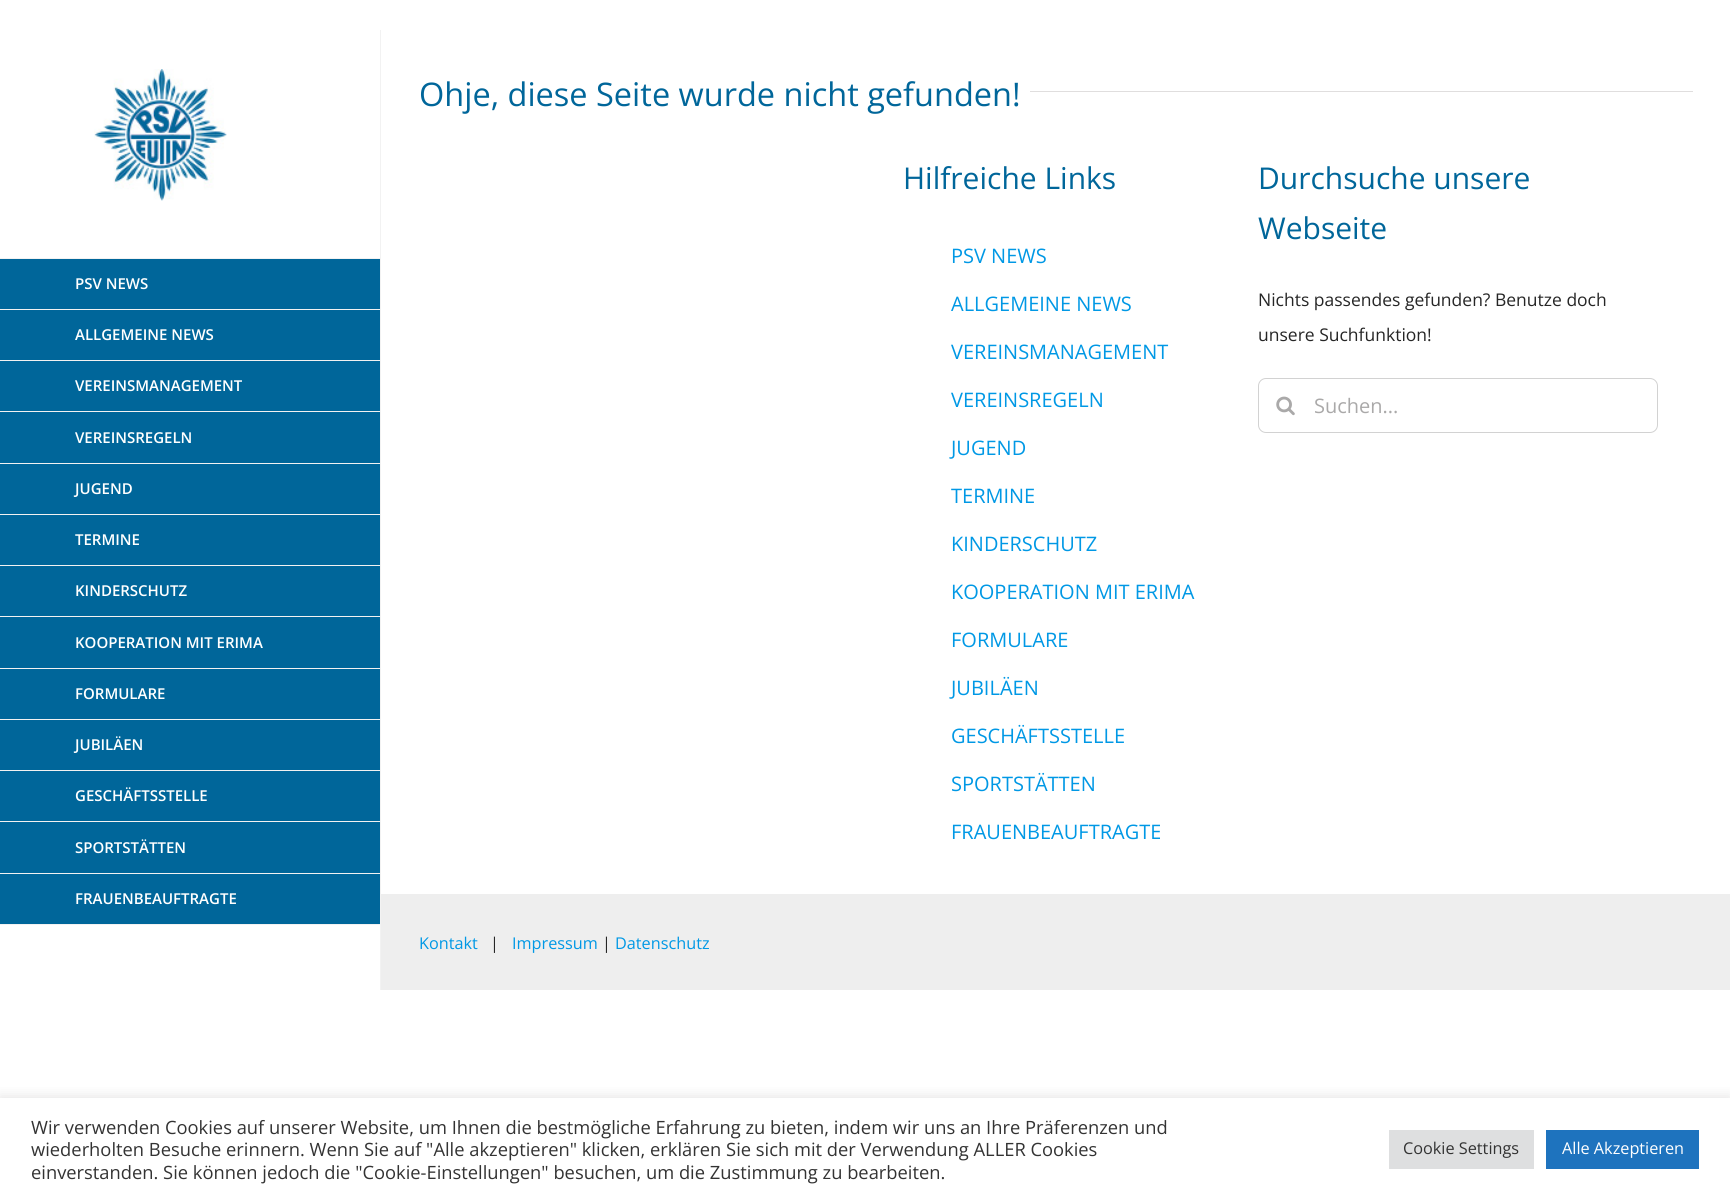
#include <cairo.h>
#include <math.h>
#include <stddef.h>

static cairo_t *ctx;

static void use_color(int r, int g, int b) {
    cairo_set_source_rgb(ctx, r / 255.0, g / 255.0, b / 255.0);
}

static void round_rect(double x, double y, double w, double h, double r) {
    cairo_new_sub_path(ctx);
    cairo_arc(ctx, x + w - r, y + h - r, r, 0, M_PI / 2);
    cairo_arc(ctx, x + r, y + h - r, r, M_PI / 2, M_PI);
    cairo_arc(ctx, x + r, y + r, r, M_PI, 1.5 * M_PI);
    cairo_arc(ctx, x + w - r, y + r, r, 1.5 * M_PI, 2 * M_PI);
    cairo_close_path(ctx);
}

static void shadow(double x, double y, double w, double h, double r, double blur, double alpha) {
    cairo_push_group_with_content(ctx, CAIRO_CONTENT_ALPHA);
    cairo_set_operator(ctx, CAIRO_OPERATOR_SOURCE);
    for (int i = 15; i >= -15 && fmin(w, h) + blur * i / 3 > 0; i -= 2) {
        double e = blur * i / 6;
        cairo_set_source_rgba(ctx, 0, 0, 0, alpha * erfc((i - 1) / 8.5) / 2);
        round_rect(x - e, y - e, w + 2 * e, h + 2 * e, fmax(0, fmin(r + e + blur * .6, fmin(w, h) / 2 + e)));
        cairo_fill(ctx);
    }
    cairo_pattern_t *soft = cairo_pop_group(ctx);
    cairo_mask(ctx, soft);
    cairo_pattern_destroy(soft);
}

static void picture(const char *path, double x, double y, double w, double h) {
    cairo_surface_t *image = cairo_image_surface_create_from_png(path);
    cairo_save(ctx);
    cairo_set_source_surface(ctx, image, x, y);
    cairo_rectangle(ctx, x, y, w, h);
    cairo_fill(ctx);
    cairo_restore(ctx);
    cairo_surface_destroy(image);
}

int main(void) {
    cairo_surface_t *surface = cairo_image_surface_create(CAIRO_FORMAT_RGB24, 1730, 1200);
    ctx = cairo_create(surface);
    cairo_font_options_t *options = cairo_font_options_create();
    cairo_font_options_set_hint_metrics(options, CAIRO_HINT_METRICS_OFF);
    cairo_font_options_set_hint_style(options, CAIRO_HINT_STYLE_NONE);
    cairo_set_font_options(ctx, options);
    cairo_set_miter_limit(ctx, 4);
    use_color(255, 255, 255);
    cairo_paint(ctx);
    picture("img1.png", 94, 69, 133, 132);
    use_color(0, 102, 154);
    cairo_rectangle(ctx, 0, 259, 380, 665);
    cairo_fill(ctx);
    use_color(242, 242, 242);
    cairo_rectangle(ctx, 380, 30, 1, 960);
    cairo_fill(ctx);
    cairo_rectangle(ctx, 0, 258, 381, 1);
    cairo_fill(ctx);
    cairo_rectangle(ctx, 0, 309, 381, 1);
    cairo_fill(ctx);
    cairo_select_font_face(ctx, "Open Sans SemiBold", CAIRO_FONT_SLANT_NORMAL, CAIRO_FONT_WEIGHT_NORMAL);
    cairo_set_font_size(ctx, 15);
    use_color(255, 255, 255);
    cairo_move_to(ctx, 75, 289);
    cairo_show_text(ctx, "PSV NEWS");
    use_color(242, 242, 242);
    cairo_rectangle(ctx, 0, 360, 381, 1);
    cairo_fill(ctx);
    use_color(255, 255, 255);
    cairo_move_to(ctx, 75, 340);
    cairo_show_text(ctx, "ALLGEMEINE NEWS");
    use_color(242, 242, 242);
    cairo_rectangle(ctx, 0, 411, 381, 1);
    cairo_fill(ctx);
    use_color(255, 255, 255);
    cairo_move_to(ctx, 75, 391);
    cairo_show_text(ctx, "VEREINSMANAGEMENT");
    use_color(242, 242, 242);
    cairo_rectangle(ctx, 0, 463, 381, 1);
    cairo_fill(ctx);
    use_color(255, 255, 255);
    cairo_move_to(ctx, 75, 443);
    cairo_show_text(ctx, "VEREINSREGELN");
    use_color(242, 242, 242);
    cairo_rectangle(ctx, 0, 514, 381, 1);
    cairo_fill(ctx);
    use_color(255, 255, 255);
    cairo_move_to(ctx, 75, 494);
    cairo_show_text(ctx, "JUGEND");
    use_color(242, 242, 242);
    cairo_rectangle(ctx, 0, 565, 381, 1);
    cairo_fill(ctx);
    use_color(255, 255, 255);
    cairo_move_to(ctx, 75, 545);
    cairo_show_text(ctx, "TERMINE");
    use_color(242, 242, 242);
    cairo_rectangle(ctx, 0, 616, 381, 1);
    cairo_fill(ctx);
    use_color(255, 255, 255);
    cairo_move_to(ctx, 75, 596);
    cairo_show_text(ctx, "KINDERSCHUTZ");
    use_color(242, 242, 242);
    cairo_rectangle(ctx, 0, 668, 381, 1);
    cairo_fill(ctx);
    use_color(255, 255, 255);
    cairo_move_to(ctx, 75, 648);
    cairo_show_text(ctx, "KOOPERATION MIT ERIMA");
    use_color(242, 242, 242);
    cairo_rectangle(ctx, 0, 719, 381, 1);
    cairo_fill(ctx);
    use_color(255, 255, 255);
    cairo_move_to(ctx, 75, 699);
    cairo_show_text(ctx, "FORMULARE");
    use_color(242, 242, 242);
    cairo_rectangle(ctx, 0, 770, 381, 1);
    cairo_fill(ctx);
    use_color(255, 255, 255);
    cairo_move_to(ctx, 75, 750);
    cairo_show_text(ctx, "JUBILÄEN");
    use_color(242, 242, 242);
    cairo_rectangle(ctx, 0, 821, 381, 1);
    cairo_fill(ctx);
    use_color(255, 255, 255);
    cairo_move_to(ctx, 75, 801);
    cairo_show_text(ctx, "GESCHÄFTSSTELLE");
    use_color(242, 242, 242);
    cairo_rectangle(ctx, 0, 873, 381, 1);
    cairo_fill(ctx);
    use_color(255, 255, 255);
    cairo_move_to(ctx, 75, 853);
    cairo_show_text(ctx, "SPORTSTÄTTEN");
    use_color(242, 242, 242);
    cairo_rectangle(ctx, 0, 924, 381, 1);
    cairo_fill(ctx);
    use_color(255, 255, 255);
    cairo_move_to(ctx, 75, 904);
    cairo_show_text(ctx, "FRAUENBEAUFTRAGTE");
    cairo_select_font_face(ctx, "Open Sans", CAIRO_FONT_SLANT_NORMAL, CAIRO_FONT_WEIGHT_NORMAL);
    cairo_set_font_size(ctx, 32.5);
    use_color(0, 102, 154);
    cairo_move_to(ctx, 419, 106);
    cairo_show_text(ctx, "Ohje, diese Seite wurde nicht gefunden!");
    use_color(224, 222, 222);
    cairo_rectangle(ctx, 1030, 91, 663, 1);
    cairo_fill(ctx);
    cairo_set_font_size(ctx, 30);
    use_color(0, 102, 154);
    cairo_move_to(ctx, 903, 189);
    cairo_show_text(ctx, "Hilfreiche Links");
    cairo_set_font_size(ctx, 20);
    use_color(0, 152, 229);
    cairo_move_to(ctx, 951, 263);
    cairo_show_text(ctx, "PSV NEWS");
    cairo_move_to(ctx, 951, 311);
    cairo_show_text(ctx, "ALLGEMEINE NEWS");
    cairo_move_to(ctx, 951, 359);
    cairo_show_text(ctx, "VEREINSMANAGEMENT");
    cairo_move_to(ctx, 951, 407);
    cairo_show_text(ctx, "VEREINSREGELN");
    cairo_move_to(ctx, 951, 455);
    cairo_show_text(ctx, "JUGEND");
    cairo_move_to(ctx, 951, 503);
    cairo_show_text(ctx, "TERMINE");
    cairo_move_to(ctx, 951, 551);
    cairo_show_text(ctx, "KINDERSCHUTZ");
    cairo_move_to(ctx, 951, 599);
    cairo_show_text(ctx, "KOOPERATION MIT ERIMA");
    cairo_move_to(ctx, 951, 647);
    cairo_show_text(ctx, "FORMULARE");
    cairo_move_to(ctx, 951, 695);
    cairo_show_text(ctx, "JUBILÄEN");
    cairo_move_to(ctx, 951, 743);
    cairo_show_text(ctx, "GESCHÄFTSSTELLE");
    cairo_move_to(ctx, 951, 791);
    cairo_show_text(ctx, "SPORTSTÄTTEN");
    cairo_move_to(ctx, 951, 839);
    cairo_show_text(ctx, "FRAUENBEAUFTRAGTE");
    cairo_set_font_size(ctx, 30);
    use_color(0, 102, 154);
    cairo_move_to(ctx, 1258, 189);
    cairo_show_text(ctx, "Durchsuche unsere");
    cairo_move_to(ctx, 1258, 239);
    cairo_show_text(ctx, "Webseite");
    cairo_set_font_size(ctx, 17.5);
    use_color(38, 38, 38);
    cairo_move_to(ctx, 1258, 306);
    cairo_show_text(ctx, "Nichts passendes gefunden? Benutze doch");
    cairo_move_to(ctx, 1258, 341);
    cairo_show_text(ctx, "unsere Suchfunktion!");
    round_rect(1258.5, 378.5, 399, 54, 7.5);
    use_color(210, 210, 210);
    cairo_set_line_width(ctx, 1);
    cairo_stroke(ctx);
    picture("img2.png", 1276, 396, 19, 20);
    cairo_set_font_size(ctx, 20);
    use_color(170, 169, 169);
    cairo_move_to(ctx, 1314, 413);
    cairo_show_text(ctx, "Suchen...");
    use_color(238, 238, 238);
    cairo_rectangle(ctx, 381, 894, 1349, 96);
    cairo_fill(ctx);
    cairo_set_font_size(ctx, 16.25);
    use_color(0, 152, 229);
    cairo_move_to(ctx, 419, 949);
    cairo_show_text(ctx, "Kontakt");
    use_color(38, 38, 38);
    cairo_move_to(ctx, 490, 949);
    cairo_show_text(ctx, "|");
    use_color(0, 152, 229);
    cairo_move_to(ctx, 512, 949);
    cairo_show_text(ctx, "Impressum");
    use_color(38, 38, 38);
    cairo_move_to(ctx, 602, 949);
    cairo_show_text(ctx, "|");
    use_color(0, 152, 229);
    cairo_move_to(ctx, 615, 949);
    cairo_show_text(ctx, "Datenschutz");
    cairo_save(ctx);
    cairo_rectangle(ctx, 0, 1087, 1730, 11);
    cairo_clip(ctx);
    use_color(172, 171, 171);
    shadow(0, 1096, 1730, 103, 0, 6, 0.3);
    cairo_restore(ctx);
    cairo_set_font_size(ctx, 18.33);
    use_color(51, 51, 51);
    cairo_move_to(ctx, 31, 1134);
    cairo_show_text(ctx, "Wir verwenden Cookies auf unserer Website, um Ihnen die bestmögliche Erfahrung zu bieten, indem wir uns an Ihre Präferenzen und");
    cairo_move_to(ctx, 31, 1156);
    cairo_show_text(ctx, "wiederholten Besuche erinnern. Wenn Sie auf \"Alle akzeptieren\" klicken, erklären Sie sich mit der Verwendung ALLER Cookies");
    cairo_move_to(ctx, 31, 1179);
    cairo_show_text(ctx, "einverstanden. Sie können jedoch die \"Cookie-Einstellungen\" besuchen, um die Zustimmung zu bearbeiten.");
    use_color(222, 223, 224);
    cairo_rectangle(ctx, 1389, 1130, 145, 39);
    cairo_fill(ctx);
    cairo_set_font_size(ctx, 16.25);
    use_color(51, 51, 51);
    cairo_move_to(ctx, 1403, 1154);
    cairo_show_text(ctx, "Cookie Settings");
    use_color(30, 115, 190);
    cairo_rectangle(ctx, 1546, 1130, 153, 39);
    cairo_fill(ctx);
    use_color(255, 255, 255);
    cairo_move_to(ctx, 1562, 1154);
    cairo_show_text(ctx, "Alle Akzeptieren");
    cairo_surface_write_to_png(surface, "result.png");
    cairo_font_options_destroy(options);
    cairo_destroy(ctx);
    cairo_surface_destroy(surface);
    return 0;
}
